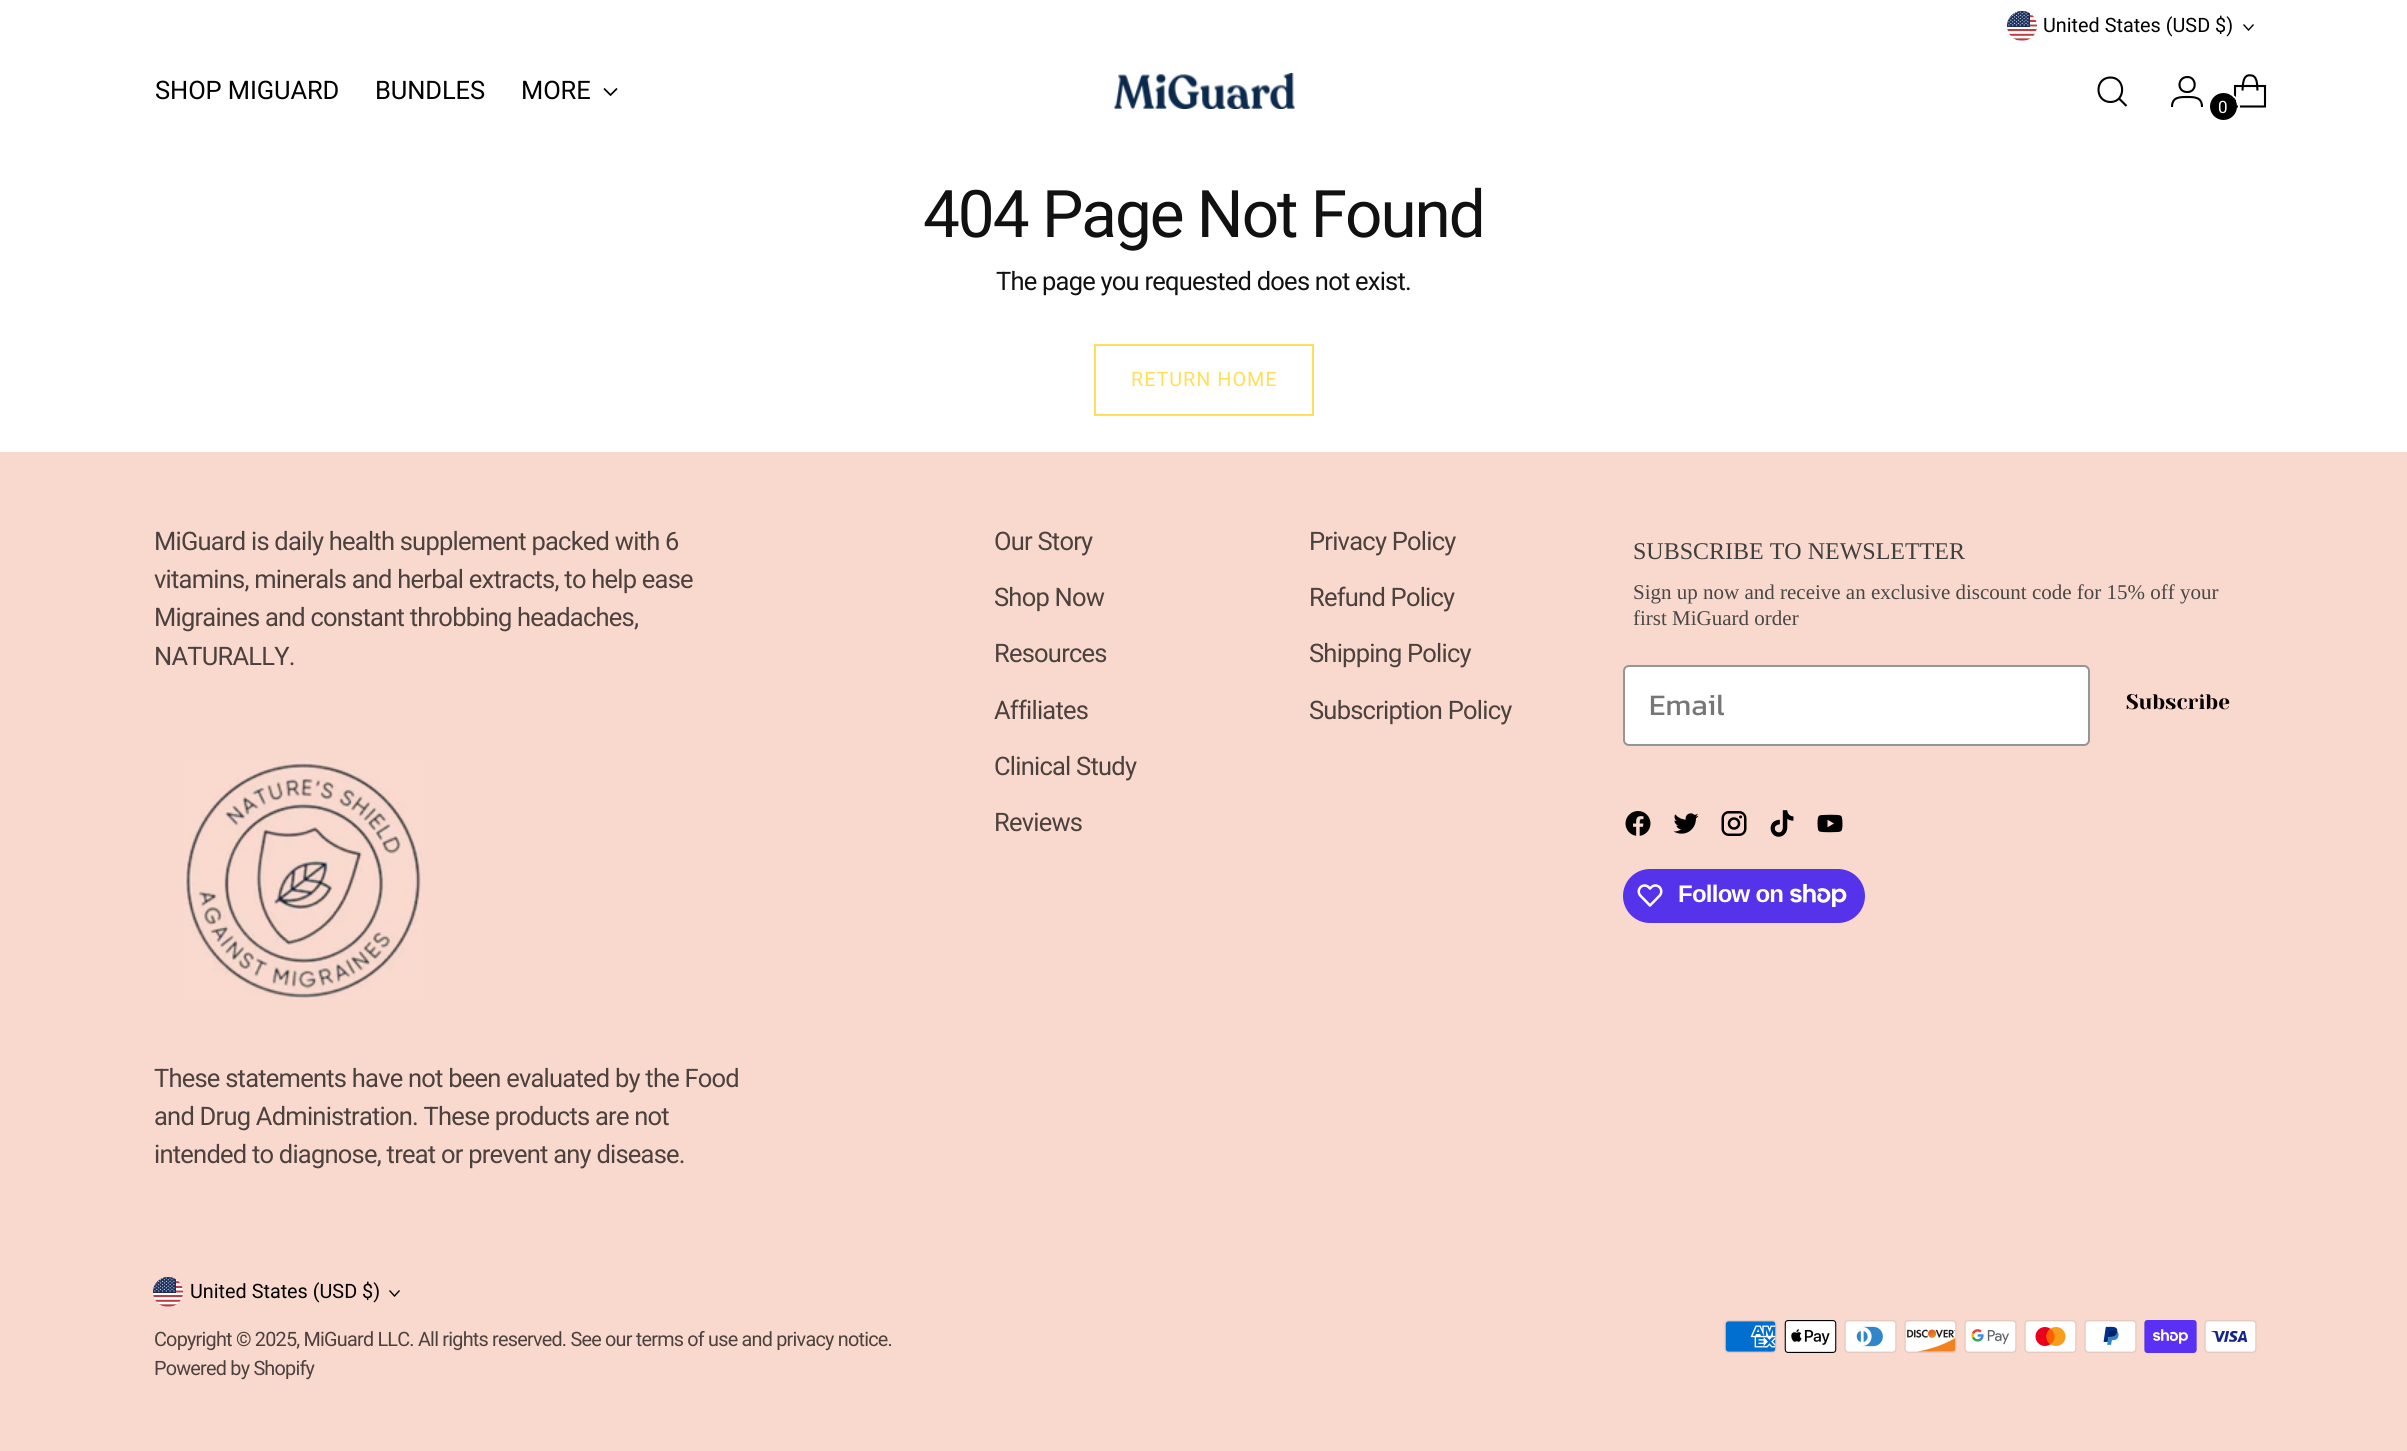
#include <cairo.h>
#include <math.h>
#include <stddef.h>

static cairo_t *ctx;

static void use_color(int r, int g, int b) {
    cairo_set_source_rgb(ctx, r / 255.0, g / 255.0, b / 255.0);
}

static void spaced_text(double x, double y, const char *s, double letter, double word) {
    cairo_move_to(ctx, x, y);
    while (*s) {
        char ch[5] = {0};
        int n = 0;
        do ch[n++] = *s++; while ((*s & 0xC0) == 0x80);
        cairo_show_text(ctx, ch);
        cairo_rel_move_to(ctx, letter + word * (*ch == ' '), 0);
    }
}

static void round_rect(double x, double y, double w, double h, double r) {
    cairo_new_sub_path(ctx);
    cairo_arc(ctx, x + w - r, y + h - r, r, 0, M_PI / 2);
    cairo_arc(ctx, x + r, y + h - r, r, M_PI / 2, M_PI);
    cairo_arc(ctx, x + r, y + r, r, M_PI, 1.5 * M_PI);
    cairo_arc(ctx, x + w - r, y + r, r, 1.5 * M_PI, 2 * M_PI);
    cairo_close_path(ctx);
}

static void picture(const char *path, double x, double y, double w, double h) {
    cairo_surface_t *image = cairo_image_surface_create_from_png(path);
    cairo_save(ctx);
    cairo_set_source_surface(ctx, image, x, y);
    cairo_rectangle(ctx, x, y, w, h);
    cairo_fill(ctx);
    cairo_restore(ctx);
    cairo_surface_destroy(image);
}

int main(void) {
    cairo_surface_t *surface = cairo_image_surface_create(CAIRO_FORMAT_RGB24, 2407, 1451);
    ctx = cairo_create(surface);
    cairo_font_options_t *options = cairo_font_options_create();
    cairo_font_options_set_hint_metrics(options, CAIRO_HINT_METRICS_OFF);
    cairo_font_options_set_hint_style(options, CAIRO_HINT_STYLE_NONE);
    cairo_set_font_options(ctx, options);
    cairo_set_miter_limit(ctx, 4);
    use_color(255, 255, 255);
    cairo_paint(ctx);
    picture("img1.png", 2007, 11, 30, 30);
    cairo_select_font_face(ctx, "Roboto", CAIRO_FONT_SLANT_NORMAL, CAIRO_FONT_WEIGHT_NORMAL);
    cairo_set_font_size(ctx, 19.8);
    use_color(0, 0, 0);
    cairo_move_to(ctx, 2043, 32);
    cairo_show_text(ctx, "United States (USD $)");
    cairo_new_path(ctx);
    cairo_move_to(ctx, 2243.5, 24.5);
    cairo_line_to(ctx, 2248.5, 30);
    cairo_line_to(ctx, 2253.5, 24.5);
    cairo_set_line_width(ctx, 1.4);
    cairo_stroke(ctx);
    cairo_set_font_size(ctx, 25.5);
    spaced_text(155, 99, "SHOP MIGUARD", -0.1, 0);
    spaced_text(375, 99, "BUNDLES", -0.1, 0);
    spaced_text(521, 99, "MORE", -0.1, 0);
    cairo_new_path(ctx);
    cairo_move_to(ctx, 604, 88.5);
    cairo_line_to(ctx, 610.5, 95);
    cairo_line_to(ctx, 617, 88.5);
    cairo_set_line_width(ctx, 1.7);
    cairo_stroke(ctx);
    picture("img2.png", 1114, 73, 181, 36);
    cairo_new_path(ctx);
    cairo_move_to(ctx, 2110.5, 102);
    cairo_curve_to(ctx, 2126, 102, 2126, 77.5, 2110.5, 77.5);
    cairo_curve_to(ctx, 2094.5, 77.5, 2094.5, 102, 2110.5, 102);
    cairo_close_path(ctx);
    cairo_set_line_width(ctx, 2.1);
    cairo_set_line_cap(ctx, CAIRO_LINE_CAP_ROUND);
    cairo_stroke(ctx);
    cairo_new_path(ctx);
    cairo_move_to(ctx, 2119, 98.5);
    cairo_line_to(ctx, 2126.5, 106);
    cairo_set_line_cap(ctx, CAIRO_LINE_CAP_BUTT);
    cairo_stroke(ctx);
    cairo_new_path(ctx);
    cairo_move_to(ctx, 2187, 92);
    cairo_curve_to(ctx, 2197.5, 92.5, 2197, 76.5, 2187, 77);
    cairo_curve_to(ctx, 2177, 77.5, 2177, 92, 2187, 92);
    cairo_close_path(ctx);
    cairo_move_to(ctx, 2172, 107);
    cairo_curve_to(ctx, 2172, 97, 2179.5, 97, 2187, 97);
    cairo_curve_to(ctx, 2194.5, 97, 2202, 97, 2202, 107);
    cairo_stroke(ctx);
    cairo_new_path(ctx);
    cairo_move_to(ctx, 2257.5, 90.5);
    cairo_curve_to(ctx, 2257, 87, 2257.5, 83, 2256, 79.5);
    cairo_curve_to(ctx, 2255.5, 77.5, 2253.5, 75.5, 2251.5, 75.5);
    cairo_curve_to(ctx, 2242.5, 73.5, 2243, 85, 2242.5, 90.5);
    cairo_set_line_join(ctx, CAIRO_LINE_JOIN_BEVEL);
    cairo_stroke(ctx);
    cairo_new_path(ctx);
    cairo_move_to(ctx, 2265, 106.5);
    cairo_line_to(ctx, 2265, 86);
    cairo_line_to(ctx, 2235, 86);
    cairo_line_to(ctx, 2235, 106.5);
    cairo_close_path(ctx);
    cairo_set_line_join(ctx, CAIRO_LINE_JOIN_MITER);
    cairo_stroke(ctx);
    round_rect(2209, 93, 30, 29, 14.5);
    use_color(255, 255, 255);
    cairo_set_line_width(ctx, 2);
    cairo_stroke(ctx);
    use_color(0, 0, 0);
    cairo_arc(ctx, 2223.5, 106.5, 13.5, 0, 2 * M_PI);
    cairo_fill(ctx);
    cairo_set_font_size(ctx, 17);
    use_color(255, 255, 255);
    spaced_text(2218, 113, "0", -0.77, 0);
    cairo_set_font_size(ctx, 65.6);
    use_color(17, 17, 17);
    spaced_text(923, 237, "404 Page Not Found", -2, 0);
    cairo_set_font_size(ctx, 25.5);
    spaced_text(996, 290, "The page you requested does not exist.", -0.77, 0);
    cairo_rectangle(ctx, 1095, 345, 218, 70);
    use_color(255, 222, 89);
    cairo_stroke(ctx);
    cairo_set_font_size(ctx, 19.8);
    spaced_text(1131, 386, "RETURN HOME", 1, 0);
    use_color(249, 217, 205);
    cairo_rectangle(ctx, 0, 452, 2407, 999);
    cairo_fill(ctx);
    cairo_set_font_size(ctx, 25.5);
    use_color(75, 65, 62);
    spaced_text(154, 550, "MiGuard is daily health supplement packed with 6", -0.77, 0);
    spaced_text(154, 588, "vitamins, minerals and herbal extracts, to help ease", -0.77, 0);
    spaced_text(154, 626, "Migraines and constant throbbing headaches,", -0.77, 0);
    spaced_text(154, 665, "NATURALLY.", -0.77, 0);
    picture("img3.png", 184, 761, 239, 239);
    spaced_text(994, 550, "Our Story", -0.77, 0);
    spaced_text(994, 606, "Shop Now", -0.77, 0);
    spaced_text(994, 662, "Resources", -0.77, 0);
    spaced_text(994, 719, "Affiliates", -0.77, 0);
    spaced_text(994, 775, "Clinical Study", -0.77, 0);
    spaced_text(994, 831, "Reviews", -0.77, 0);
    spaced_text(1309, 550, "Privacy Policy", -0.77, 0);
    spaced_text(1309, 606, "Refund Policy", -0.77, 0);
    spaced_text(1309, 662, "Shipping Policy", -0.77, 0);
    spaced_text(1309, 719, "Subscription Policy", -0.77, 0);
    cairo_select_font_face(ctx, "Liberation Serif", CAIRO_FONT_SLANT_NORMAL, CAIRO_FONT_WEIGHT_NORMAL);
    cairo_set_font_size(ctx, 24);
    use_color(63, 63, 63);
    cairo_move_to(ctx, 1633, 559);
    cairo_show_text(ctx, "SUBSCRIBE TO NEWSLETTER");
    cairo_set_font_size(ctx, 21);
    use_color(71, 71, 71);
    cairo_move_to(ctx, 1633, 599);
    cairo_show_text(ctx, "Sign up now and receive an exclusive discount code for 15% off your");
    cairo_move_to(ctx, 1633, 625);
    cairo_show_text(ctx, "first MiGuard order");
    use_color(255, 255, 255);
    round_rect(1624, 666, 465, 79, 5);
    cairo_fill_preserve(ctx);
    use_color(148, 149, 150);
    cairo_stroke(ctx);
    cairo_select_font_face(ctx, "Kanit", CAIRO_FONT_SLANT_NORMAL, CAIRO_FONT_WEIGHT_NORMAL);
    cairo_set_font_size(ctx, 30);
    use_color(118, 118, 118);
    cairo_move_to(ctx, 1649, 715);
    cairo_show_text(ctx, "Email");
    cairo_select_font_face(ctx, "Yeseva One", CAIRO_FONT_SLANT_NORMAL, CAIRO_FONT_WEIGHT_NORMAL);
    cairo_set_font_size(ctx, 21);
    use_color(7, 0, 0);
    cairo_move_to(ctx, 2126, 709);
    cairo_show_text(ctx, "Subscribe");
    picture("img4.png", 1625, 811, 26, 25);
    picture("img5.png", 1673, 813, 26, 21);
    picture("img6.png", 1721, 811, 26, 25);
    picture("img7.png", 1770, 810, 24, 27);
    picture("img8.png", 1817, 814, 26, 19);
    use_color(84, 51, 235);
    round_rect(1623, 869, 242, 54, 27);
    cairo_fill(ctx);
    picture("img9.png", 1637, 884, 26, 23);
    cairo_select_font_face(ctx, "Liberation Sans", CAIRO_FONT_SLANT_NORMAL, CAIRO_FONT_WEIGHT_BOLD);
    cairo_set_font_size(ctx, 24);
    use_color(255, 255, 255);
    spaced_text(1678, 902, "Follow on", -0.75, 0);
    picture("img10.png", 1790, 884, 57, 23);
    cairo_select_font_face(ctx, "Roboto", CAIRO_FONT_SLANT_NORMAL, CAIRO_FONT_WEIGHT_NORMAL);
    cairo_set_font_size(ctx, 25.5);
    use_color(75, 65, 62);
    spaced_text(154, 1087, "These statements have not been evaluated by the Food", -0.77, 0);
    spaced_text(154, 1125, "and Drug Administration. These products are not", -0.77, 0);
    spaced_text(154, 1163, "intended to diagnose, treat or prevent any disease.", -0.77, 0);
    picture("img11.png", 153, 1277, 30, 30);
    cairo_set_font_size(ctx, 19.8);
    use_color(0, 0, 0);
    cairo_move_to(ctx, 190, 1298);
    cairo_show_text(ctx, "United States (USD $)");
    cairo_new_path(ctx);
    cairo_move_to(ctx, 389.5, 1290.5);
    cairo_line_to(ctx, 394.5, 1296);
    cairo_line_to(ctx, 399.5, 1290.5);
    cairo_set_line_width(ctx, 1.4);
    cairo_stroke(ctx);
    use_color(75, 65, 62);
    spaced_text(154, 1346, "Copyright © 2025, MiGuard LLC. All rights reserved. See our terms of use and privacy notice.", -0.77, 0);
    spaced_text(154, 1375, "Powered by Shopify", -0.77, 0);
    picture("img12.png", 1724, 1320, 53, 33);
    picture("img13.png", 1784, 1320, 53, 33);
    picture("img14.png", 1844, 1320, 53, 33);
    picture("img15.png", 1904, 1320, 53, 33);
    picture("img16.png", 1964, 1320, 53, 33);
    picture("img17.png", 2024, 1320, 53, 33);
    picture("img18.png", 2084, 1320, 53, 33);
    picture("img19.png", 2144, 1320, 53, 33);
    picture("img20.png", 2204, 1320, 53, 33);
    cairo_surface_write_to_png(surface, "result.png");
    cairo_font_options_destroy(options);
    cairo_destroy(ctx);
    cairo_surface_destroy(surface);
    return 0;
}
